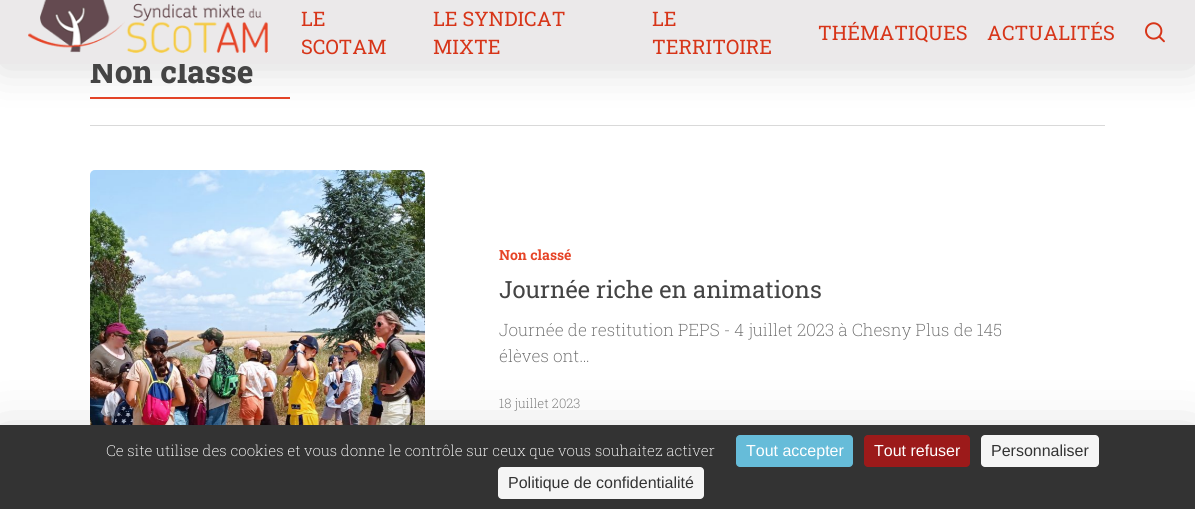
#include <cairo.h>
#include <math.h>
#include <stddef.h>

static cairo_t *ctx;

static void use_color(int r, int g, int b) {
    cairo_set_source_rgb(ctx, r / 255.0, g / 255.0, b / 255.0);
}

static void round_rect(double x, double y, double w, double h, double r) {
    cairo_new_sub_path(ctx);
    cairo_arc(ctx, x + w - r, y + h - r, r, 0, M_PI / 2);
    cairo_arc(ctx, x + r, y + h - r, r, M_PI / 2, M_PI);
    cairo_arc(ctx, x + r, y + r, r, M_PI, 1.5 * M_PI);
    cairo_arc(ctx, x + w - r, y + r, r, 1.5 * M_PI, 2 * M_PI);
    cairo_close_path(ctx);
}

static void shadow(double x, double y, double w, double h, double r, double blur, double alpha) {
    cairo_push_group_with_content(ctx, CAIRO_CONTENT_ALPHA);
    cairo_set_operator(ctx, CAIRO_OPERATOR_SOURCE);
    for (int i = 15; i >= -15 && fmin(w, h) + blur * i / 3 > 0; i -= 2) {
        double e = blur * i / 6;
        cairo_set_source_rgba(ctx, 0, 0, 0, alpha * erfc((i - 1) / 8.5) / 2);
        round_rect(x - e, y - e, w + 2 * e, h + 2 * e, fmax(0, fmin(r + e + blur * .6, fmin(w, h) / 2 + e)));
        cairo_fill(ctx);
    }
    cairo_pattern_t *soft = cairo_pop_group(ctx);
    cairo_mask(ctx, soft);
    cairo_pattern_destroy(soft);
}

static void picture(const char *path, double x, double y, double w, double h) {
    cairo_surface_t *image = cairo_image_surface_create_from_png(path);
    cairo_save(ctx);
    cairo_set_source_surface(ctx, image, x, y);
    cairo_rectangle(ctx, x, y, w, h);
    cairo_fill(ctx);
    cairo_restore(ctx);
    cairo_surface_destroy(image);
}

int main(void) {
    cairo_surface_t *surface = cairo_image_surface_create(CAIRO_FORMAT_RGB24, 1195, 509);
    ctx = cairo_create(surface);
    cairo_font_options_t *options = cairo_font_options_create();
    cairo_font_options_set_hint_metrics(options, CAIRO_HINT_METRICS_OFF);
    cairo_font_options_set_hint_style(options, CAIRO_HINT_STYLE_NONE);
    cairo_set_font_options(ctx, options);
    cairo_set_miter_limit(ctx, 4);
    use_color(255, 255, 255);
    cairo_paint(ctx);
    use_color(217, 217, 217);
    cairo_rectangle(ctx, 90, 125, 1015, 1);
    cairo_fill(ctx);
    use_color(230, 68, 39);
    cairo_rectangle(ctx, 90, 97, 200, 2);
    cairo_fill(ctx);
    use_color(0, 0, 0);
    shadow(0, -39, 1195, 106, 0, 22.5, 0.15);
    cairo_select_font_face(ctx, "Roboto Slab ExtraBold", CAIRO_FONT_SLANT_NORMAL, CAIRO_FONT_WEIGHT_NORMAL);
    cairo_set_font_size(ctx, 31.5);
    use_color(68, 68, 68);
    cairo_move_to(ctx, 90, 83);
    cairo_show_text(ctx, "Non classé");
    use_color(235, 233, 234);
    cairo_rectangle(ctx, 0, 0, 1195, 64);
    cairo_fill(ctx);
    picture("img1.png", 28, 0, 240, 53);
    cairo_select_font_face(ctx, "Roboto Slab", CAIRO_FONT_SLANT_NORMAL, CAIRO_FONT_WEIGHT_NORMAL);
    cairo_set_font_size(ctx, 20);
    use_color(215, 53, 25);
    cairo_move_to(ctx, 301, 26);
    cairo_show_text(ctx, "LE");
    cairo_move_to(ctx, 301, 54);
    cairo_show_text(ctx, "SCOTAM");
    cairo_move_to(ctx, 433, 26);
    cairo_show_text(ctx, "LE SYNDICAT");
    cairo_move_to(ctx, 433, 54);
    cairo_show_text(ctx, "MIXTE");
    cairo_move_to(ctx, 652, 26);
    cairo_show_text(ctx, "LE");
    cairo_move_to(ctx, 652, 54);
    cairo_show_text(ctx, "TERRITOIRE");
    cairo_move_to(ctx, 818, 40);
    cairo_show_text(ctx, "THÉMATIQUES");
    cairo_move_to(ctx, 987, 40);
    cairo_show_text(ctx, "ACTUALITÉS");
    picture("img2.png", 1145, 22, 20, 21);
    picture("img3.png", 90, 170, 335, 255);
    cairo_select_font_face(ctx, "Roboto Slab", CAIRO_FONT_SLANT_NORMAL, CAIRO_FONT_WEIGHT_BOLD);
    cairo_set_font_size(ctx, 14);
    use_color(230, 68, 39);
    cairo_move_to(ctx, 499, 260);
    cairo_show_text(ctx, "Non classé");
    cairo_select_font_face(ctx, "Roboto Slab", CAIRO_FONT_SLANT_NORMAL, CAIRO_FONT_WEIGHT_NORMAL);
    cairo_set_font_size(ctx, 23.75);
    use_color(68, 68, 68);
    cairo_move_to(ctx, 499, 298);
    cairo_show_text(ctx, "Journée riche en animations");
    cairo_select_font_face(ctx, "Roboto Slab ExtraLight", CAIRO_FONT_SLANT_NORMAL, CAIRO_FONT_WEIGHT_NORMAL);
    cairo_set_font_size(ctx, 17);
    use_color(103, 103, 103);
    cairo_move_to(ctx, 499, 336);
    cairo_show_text(ctx, "Journée de restitution PEPS - 4 juillet 2023 à Chesny Plus de 145");
    cairo_move_to(ctx, 499, 362);
    cairo_show_text(ctx, "élèves ont…");
    cairo_set_font_size(ctx, 13);
    cairo_move_to(ctx, 499, 408);
    cairo_show_text(ctx, "18 juillet 2023");
    use_color(0, 0, 0);
    shadow(0, 445, 1195, 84, 0, 30, 0.25);
    use_color(51, 51, 51);
    cairo_rectangle(ctx, 0, 425, 1195, 84);
    cairo_fill(ctx);
    cairo_set_font_size(ctx, 15);
    use_color(255, 255, 255);
    cairo_move_to(ctx, 106, 456);
    cairo_show_text(ctx, "Ce site utilise des cookies et vous donne le contrôle sur ceux que vous souhaitez activer");
    use_color(102, 188, 217);
    round_rect(736, 435, 117, 32, 4);
    cairo_fill(ctx);
    cairo_select_font_face(ctx, "Liberation Sans", CAIRO_FONT_SLANT_NORMAL, CAIRO_FONT_WEIGHT_NORMAL);
    cairo_set_font_size(ctx, 16);
    use_color(255, 255, 255);
    cairo_move_to(ctx, 746, 456);
    cairo_show_text(ctx, "Tout accepter");
    use_color(156, 26, 26);
    round_rect(864, 435, 106, 32, 4);
    cairo_fill(ctx);
    use_color(255, 255, 255);
    cairo_move_to(ctx, 874, 456);
    cairo_show_text(ctx, "Tout refuser");
    use_color(245, 245, 245);
    round_rect(981, 435, 118, 32, 4);
    cairo_fill(ctx);
    use_color(51, 51, 51);
    cairo_move_to(ctx, 991, 456);
    cairo_show_text(ctx, "Personnaliser");
    use_color(245, 245, 245);
    round_rect(498, 467, 206, 32, 4);
    cairo_fill(ctx);
    use_color(51, 51, 51);
    cairo_move_to(ctx, 508, 488);
    cairo_show_text(ctx, "Politique de confidentialité");
    cairo_surface_write_to_png(surface, "result.png");
    cairo_font_options_destroy(options);
    cairo_destroy(ctx);
    cairo_surface_destroy(surface);
    return 0;
}
